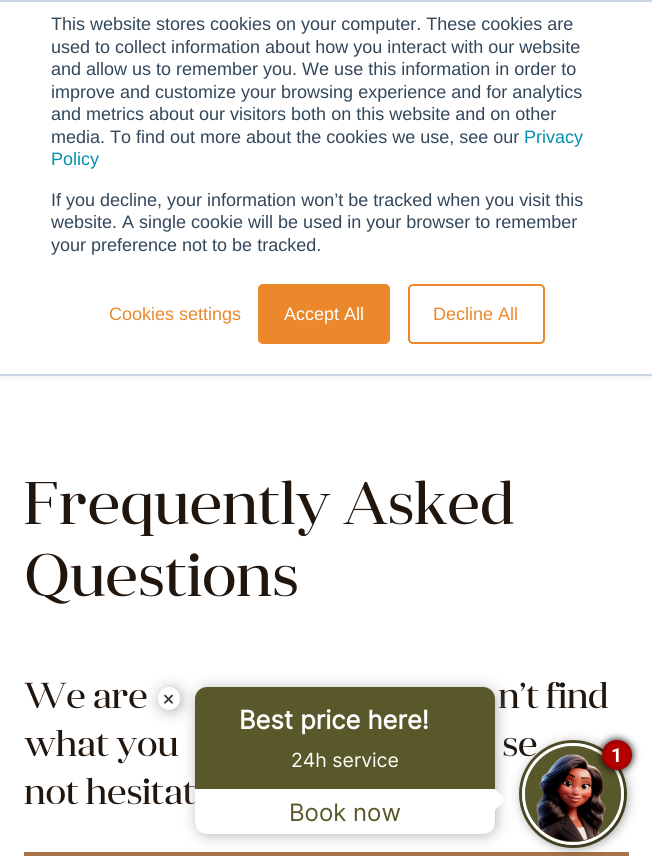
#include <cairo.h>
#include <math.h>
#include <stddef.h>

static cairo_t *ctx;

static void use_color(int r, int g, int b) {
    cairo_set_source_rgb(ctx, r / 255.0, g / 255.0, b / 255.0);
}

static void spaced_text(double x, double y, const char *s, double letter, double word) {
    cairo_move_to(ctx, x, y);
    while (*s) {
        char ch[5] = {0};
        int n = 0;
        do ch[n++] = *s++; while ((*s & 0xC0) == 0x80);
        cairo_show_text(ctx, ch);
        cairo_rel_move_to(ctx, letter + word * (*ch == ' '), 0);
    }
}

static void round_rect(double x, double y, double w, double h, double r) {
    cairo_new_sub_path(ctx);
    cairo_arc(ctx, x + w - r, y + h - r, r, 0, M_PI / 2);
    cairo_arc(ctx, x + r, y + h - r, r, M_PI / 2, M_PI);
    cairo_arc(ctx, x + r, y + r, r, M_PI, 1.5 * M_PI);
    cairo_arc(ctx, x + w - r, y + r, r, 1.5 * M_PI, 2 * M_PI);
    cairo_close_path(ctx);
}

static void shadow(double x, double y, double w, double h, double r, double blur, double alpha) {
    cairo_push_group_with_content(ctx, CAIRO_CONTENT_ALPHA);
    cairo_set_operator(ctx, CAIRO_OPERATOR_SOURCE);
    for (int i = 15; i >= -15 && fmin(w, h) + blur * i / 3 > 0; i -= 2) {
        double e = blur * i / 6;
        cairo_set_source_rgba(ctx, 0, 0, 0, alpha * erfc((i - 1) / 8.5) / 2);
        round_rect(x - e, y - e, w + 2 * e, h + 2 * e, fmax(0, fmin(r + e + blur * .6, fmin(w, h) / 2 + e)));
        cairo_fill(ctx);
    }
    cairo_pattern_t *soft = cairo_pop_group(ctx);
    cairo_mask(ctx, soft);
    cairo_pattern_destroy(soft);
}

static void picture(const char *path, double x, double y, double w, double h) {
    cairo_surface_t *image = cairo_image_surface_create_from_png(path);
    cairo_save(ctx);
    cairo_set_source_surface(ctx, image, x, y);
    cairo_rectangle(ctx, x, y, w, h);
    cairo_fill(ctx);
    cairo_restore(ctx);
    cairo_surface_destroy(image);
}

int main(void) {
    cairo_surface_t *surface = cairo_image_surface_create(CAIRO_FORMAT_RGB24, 652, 856);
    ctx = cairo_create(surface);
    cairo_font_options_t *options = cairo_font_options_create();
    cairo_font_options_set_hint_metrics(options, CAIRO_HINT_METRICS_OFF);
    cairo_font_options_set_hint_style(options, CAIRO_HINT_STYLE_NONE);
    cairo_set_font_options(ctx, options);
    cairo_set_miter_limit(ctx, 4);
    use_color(255, 255, 255);
    cairo_paint(ctx);
    use_color(234, 240, 246);
    shadow(0, 2, 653, 375, 0, 4, 1);
    use_color(255, 255, 255);
    cairo_rectangle(ctx, 0, 2, 652, 372);
    cairo_fill(ctx);
    use_color(203, 214, 226);
    cairo_rectangle(ctx, 0, 0, 652, 2);
    cairo_fill(ctx);
    cairo_rectangle(ctx, 0, 374, 652, 2);
    cairo_fill(ctx);
    cairo_select_font_face(ctx, "Liberation Sans", CAIRO_FONT_SLANT_NORMAL, CAIRO_FONT_WEIGHT_NORMAL);
    cairo_set_font_size(ctx, 18);
    use_color(51, 71, 91);
    cairo_move_to(ctx, 51, 30);
    cairo_show_text(ctx, "This website stores cookies on your computer. These cookies are");
    cairo_move_to(ctx, 51, 53);
    cairo_show_text(ctx, "used to collect information about how you interact with our website");
    cairo_move_to(ctx, 51, 75);
    cairo_show_text(ctx, "and allow us to remember you. We use this information in order to");
    cairo_move_to(ctx, 51, 98);
    cairo_show_text(ctx, "improve and customize your browsing experience and for analytics");
    cairo_move_to(ctx, 51, 120);
    cairo_show_text(ctx, "and metrics about our visitors both on this website and on other");
    cairo_move_to(ctx, 51, 143);
    cairo_show_text(ctx, "media. To find out more about the cookies we use, see our");
    use_color(0, 145, 174);
    cairo_move_to(ctx, 524, 143);
    cairo_show_text(ctx, "Privacy");
    cairo_move_to(ctx, 51, 165);
    cairo_show_text(ctx, "Policy");
    use_color(51, 71, 91);
    cairo_move_to(ctx, 51, 206);
    cairo_show_text(ctx, "If you decline, your information won’t be tracked when you visit this");
    cairo_move_to(ctx, 51, 228);
    cairo_show_text(ctx, "website. A single cookie will be used in your browser to remember");
    cairo_move_to(ctx, 51, 251);
    cairo_show_text(ctx, "your preference not to be tracked.");
    use_color(235, 136, 44);
    cairo_move_to(ctx, 109, 320);
    cairo_show_text(ctx, "Cookies settings");
    round_rect(259, 285, 130, 58, 4);
    cairo_fill_preserve(ctx);
    cairo_stroke(ctx);
    use_color(255, 255, 255);
    cairo_move_to(ctx, 284, 320);
    cairo_show_text(ctx, "Accept All");
    round_rect(409, 285, 135, 58, 4);
    use_color(235, 136, 44);
    cairo_stroke(ctx);
    cairo_move_to(ctx, 433, 320);
    cairo_show_text(ctx, "Decline All");
    cairo_select_font_face(ctx, "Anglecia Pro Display", CAIRO_FONT_SLANT_NORMAL, CAIRO_FONT_WEIGHT_NORMAL);
    cairo_set_font_size(ctx, 60);
    use_color(33, 22, 14);
    spaced_text(24, 524, "Frequently Asked", -0.75, 0);
    spaced_text(24, 596, "Questions", -0.75, 0);
    cairo_set_font_size(ctx, 36);
    spaced_text(24, 708, "We are", -0.75, 0);
    spaced_text(498, 708, "n’t find", -0.75, 0);
    spaced_text(24, 756, "what you", -0.75, 0);
    spaced_text(502, 756, "se", -0.75, 0);
    spaced_text(24, 804, "not hesitat", -0.75, 0);
    use_color(166, 115, 75);
    cairo_rectangle(ctx, 24, 852, 605, 4);
    cairo_fill(ctx);
    cairo_arc(ctx, 573, 794, 52.5, 0, 2 * M_PI);
    use_color(89, 88, 43);
    cairo_set_line_width(ctx, 3);
    cairo_stroke(ctx);
    use_color(0, 0, 0);
    shadow(528, 749, 93, 93, 46.5, 7.5, 1);
    cairo_arc(ctx, 573, 794, 49.5, 0, 2 * M_PI);
    use_color(255, 255, 255);
    cairo_stroke(ctx);
    use_color(170, 170, 170);
    shadow(198, 690, 297, 144, 11, 7.5, 1);
    use_color(89, 88, 43);
    round_rect(195, 687, 300, 147, 12);
    cairo_fill(ctx);
    use_color(170, 170, 170);
    shadow(161, 690, 19, 20, 9.5, 7.5, 1);
    use_color(255, 255, 255);
    round_rect(158, 687, 22, 23, 11);
    cairo_fill(ctx);
    cairo_select_font_face(ctx, "Roboto", CAIRO_FONT_SLANT_NORMAL, CAIRO_FONT_WEIGHT_NORMAL);
    cairo_set_font_size(ctx, 21);
    use_color(51, 51, 51);
    cairo_move_to(ctx, 163, 706);
    cairo_show_text(ctx, "×");
    cairo_select_font_face(ctx, "Inter", CAIRO_FONT_SLANT_NORMAL, CAIRO_FONT_WEIGHT_BOLD);
    cairo_set_font_size(ctx, 25.5);
    use_color(255, 255, 255);
    cairo_move_to(ctx, 239, 729);
    cairo_show_text(ctx, "Best price here!");
    cairo_select_font_face(ctx, "Inter", CAIRO_FONT_SLANT_NORMAL, CAIRO_FONT_WEIGHT_NORMAL);
    cairo_set_font_size(ctx, 19.5);
    cairo_move_to(ctx, 291, 767);
    cairo_show_text(ctx, "24h service");
    cairo_new_path(ctx);
    cairo_move_to(ctx, 195, 789);
    cairo_line_to(ctx, 495, 789);
    cairo_line_to(ctx, 495, 823);
    cairo_curve_to(ctx, 495, 829, 490, 834, 484, 834);
    cairo_line_to(ctx, 206, 834);
    cairo_curve_to(ctx, 200, 834, 195, 829, 195, 823);
    cairo_close_path(ctx);
    cairo_fill(ctx);
    cairo_new_path(ctx);
    cairo_move_to(ctx, 495, 789);
    cairo_curve_to(ctx, 506.5, 800.5, 506.5, 798.5, 495, 810);
    cairo_line_to(ctx, 484.5, 799.5);
    cairo_close_path(ctx);
    cairo_fill(ctx);
    cairo_set_font_size(ctx, 24);
    use_color(89, 88, 43);
    cairo_move_to(ctx, 289, 821);
    cairo_show_text(ctx, "Book now");
    cairo_new_path(ctx);
    cairo_arc(ctx, 573, 794, 48, 0, 2 * M_PI);
    cairo_fill(ctx);
    picture("img1.png", 536, 754, 70, 88);
    use_color(0, 0, 0);
    shadow(602, 740, 30, 30, 15, 4, 1);
    use_color(182, 0, 0);
    cairo_arc(ctx, 617, 755, 13.5, 0, 2 * M_PI);
    cairo_fill_preserve(ctx);
    use_color(163, 0, 0);
    cairo_stroke(ctx);
    cairo_select_font_face(ctx, "Roboto", CAIRO_FONT_SLANT_NORMAL, CAIRO_FONT_WEIGHT_BOLD);
    cairo_set_font_size(ctx, 19.5);
    use_color(255, 255, 255);
    cairo_move_to(ctx, 611, 762);
    cairo_show_text(ctx, "1");
    cairo_surface_write_to_png(surface, "result.png");
    cairo_font_options_destroy(options);
    cairo_destroy(ctx);
    cairo_surface_destroy(surface);
    return 0;
}
